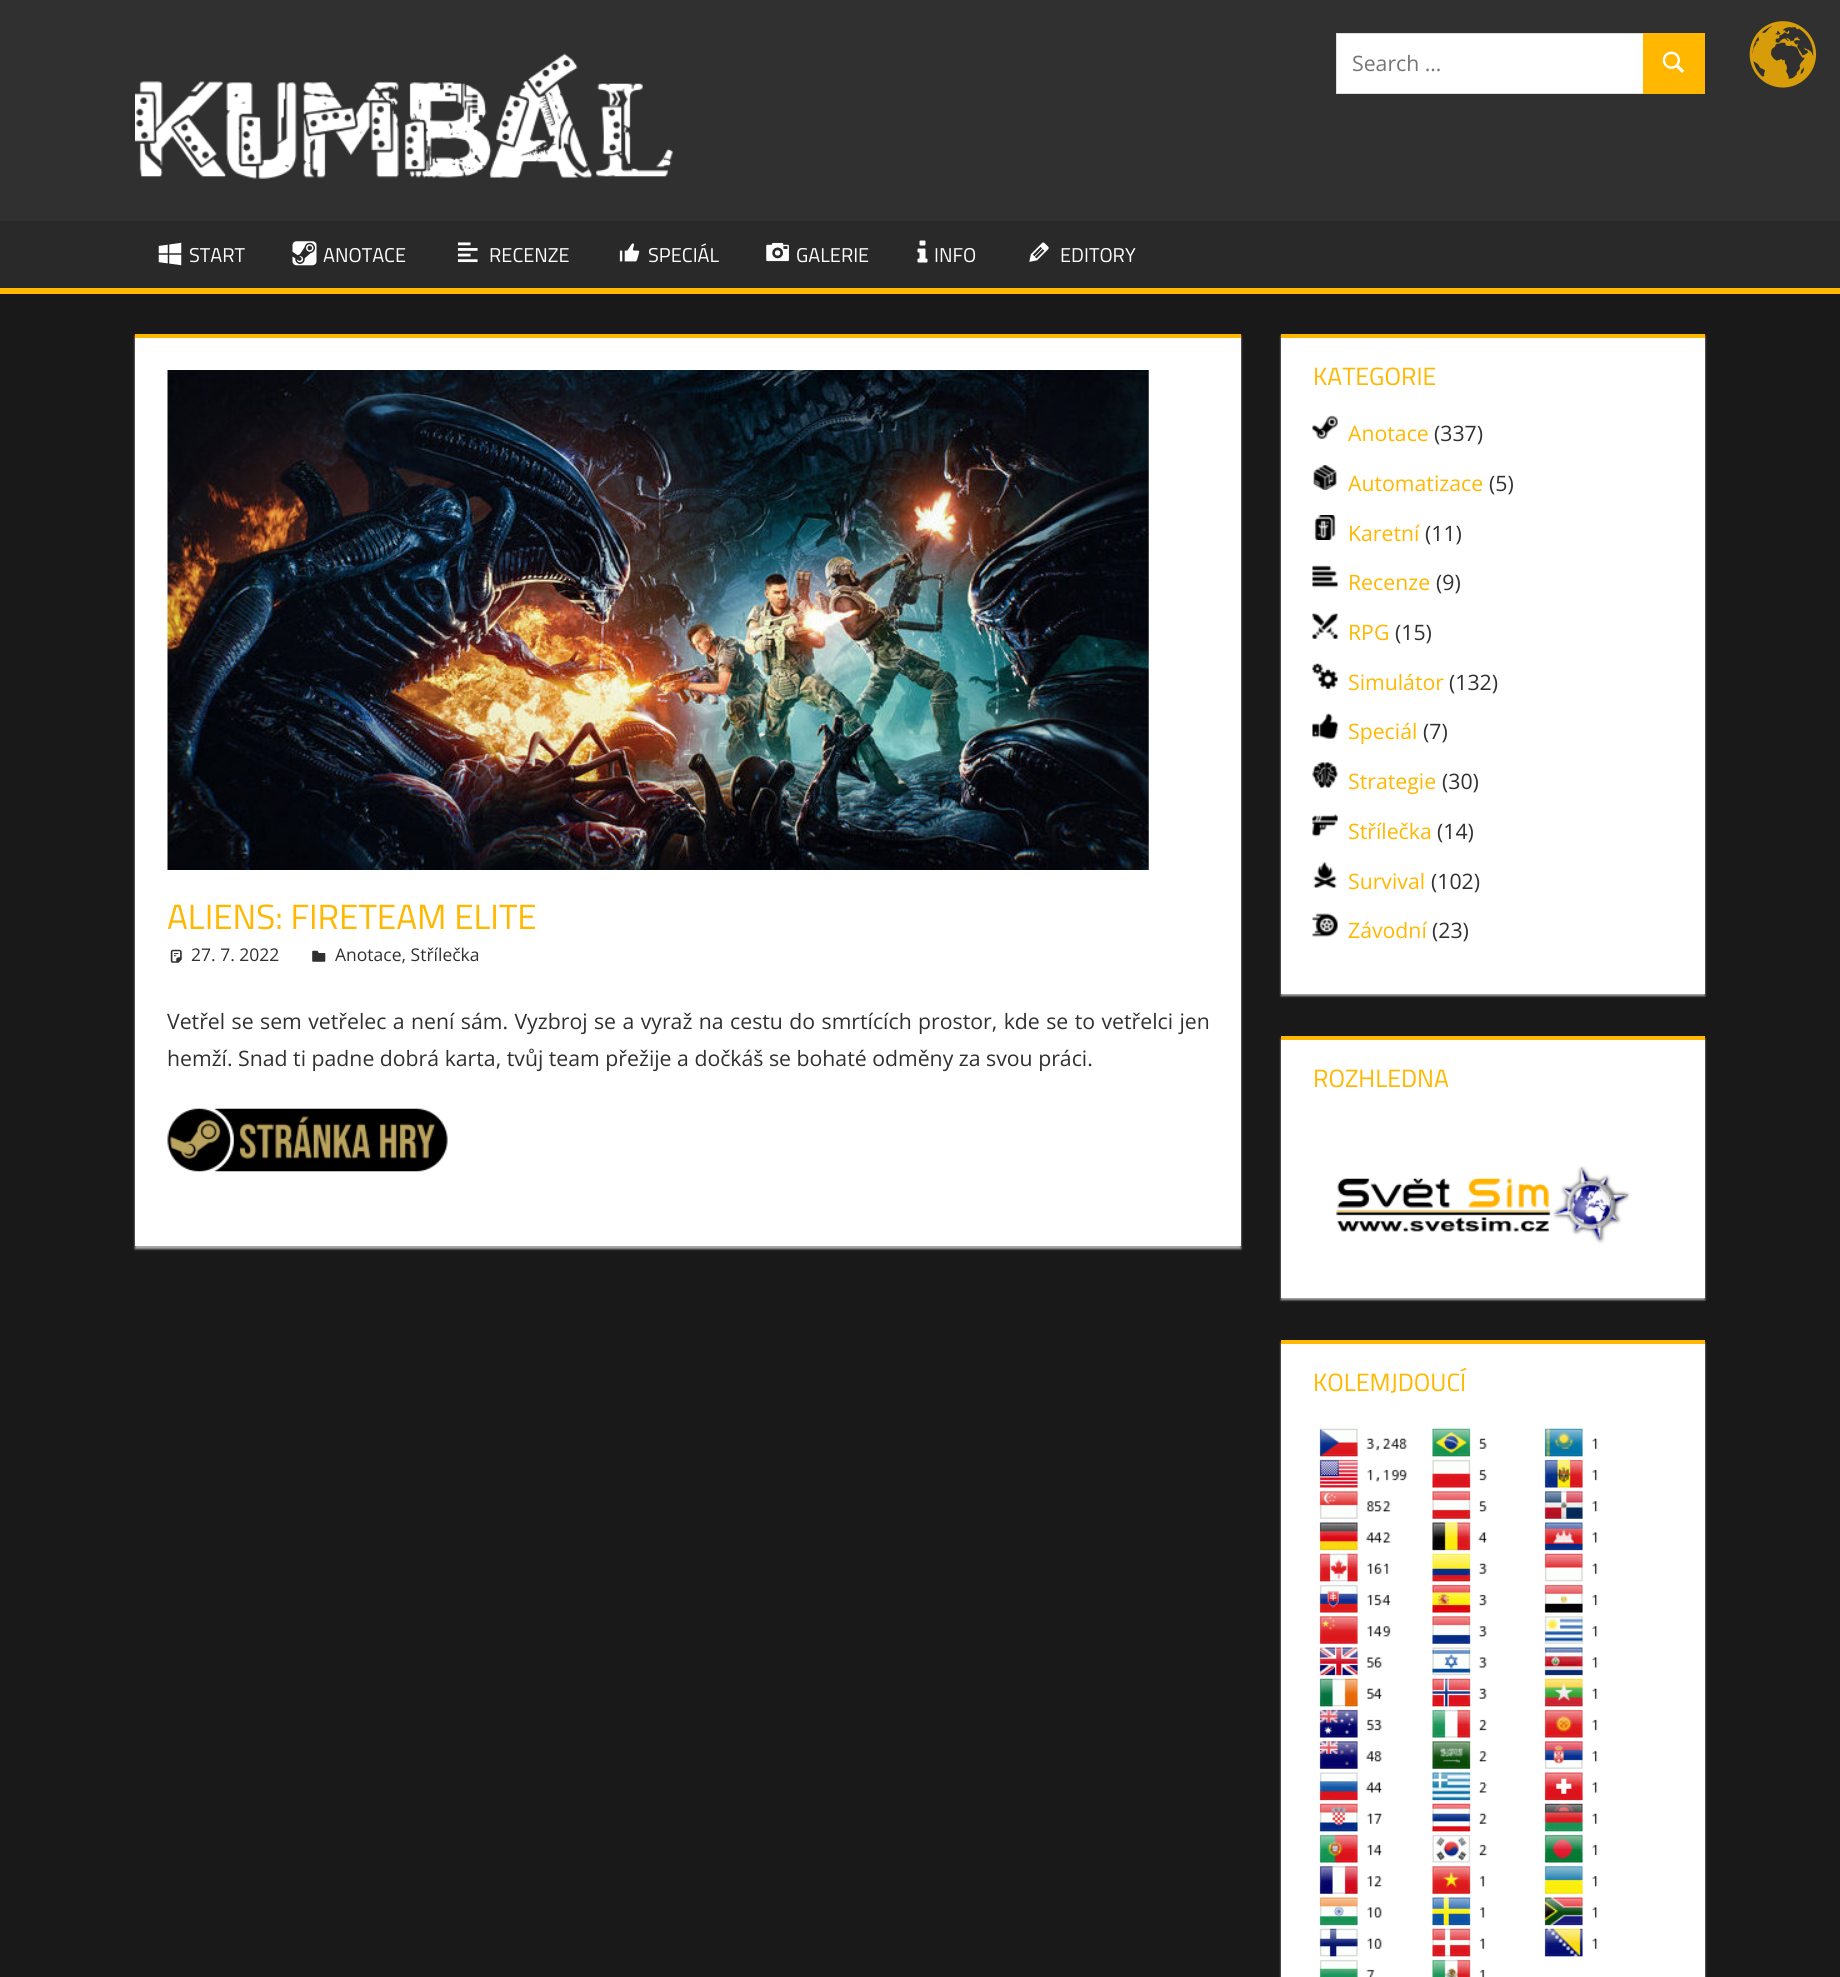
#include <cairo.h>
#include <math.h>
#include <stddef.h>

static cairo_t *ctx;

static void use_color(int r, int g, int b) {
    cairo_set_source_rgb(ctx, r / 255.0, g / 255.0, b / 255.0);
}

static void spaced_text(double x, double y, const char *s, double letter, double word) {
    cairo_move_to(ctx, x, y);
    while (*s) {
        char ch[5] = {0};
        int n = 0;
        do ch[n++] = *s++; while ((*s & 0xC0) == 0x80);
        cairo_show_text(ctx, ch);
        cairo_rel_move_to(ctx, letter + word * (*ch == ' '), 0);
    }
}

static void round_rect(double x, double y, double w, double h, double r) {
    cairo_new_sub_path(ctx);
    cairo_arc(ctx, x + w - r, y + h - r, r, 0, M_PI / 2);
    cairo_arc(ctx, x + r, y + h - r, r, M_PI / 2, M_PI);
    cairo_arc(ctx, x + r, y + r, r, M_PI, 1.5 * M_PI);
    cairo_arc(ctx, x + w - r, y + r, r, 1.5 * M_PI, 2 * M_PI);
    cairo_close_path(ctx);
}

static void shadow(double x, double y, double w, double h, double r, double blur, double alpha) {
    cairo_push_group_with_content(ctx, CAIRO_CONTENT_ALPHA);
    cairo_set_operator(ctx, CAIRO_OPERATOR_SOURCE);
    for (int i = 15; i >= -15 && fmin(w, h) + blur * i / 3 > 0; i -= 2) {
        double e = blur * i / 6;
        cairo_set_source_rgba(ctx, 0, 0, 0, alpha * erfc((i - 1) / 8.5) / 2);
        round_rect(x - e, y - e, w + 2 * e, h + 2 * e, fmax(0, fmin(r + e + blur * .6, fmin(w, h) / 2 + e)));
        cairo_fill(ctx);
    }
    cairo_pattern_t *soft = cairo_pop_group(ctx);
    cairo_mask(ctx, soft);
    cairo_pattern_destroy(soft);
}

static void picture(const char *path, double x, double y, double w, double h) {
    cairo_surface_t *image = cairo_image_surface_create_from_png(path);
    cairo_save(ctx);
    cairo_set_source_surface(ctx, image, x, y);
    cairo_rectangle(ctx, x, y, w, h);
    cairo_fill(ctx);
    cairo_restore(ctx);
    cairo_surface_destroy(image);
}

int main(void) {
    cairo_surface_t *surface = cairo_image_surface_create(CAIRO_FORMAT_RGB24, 1840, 1977);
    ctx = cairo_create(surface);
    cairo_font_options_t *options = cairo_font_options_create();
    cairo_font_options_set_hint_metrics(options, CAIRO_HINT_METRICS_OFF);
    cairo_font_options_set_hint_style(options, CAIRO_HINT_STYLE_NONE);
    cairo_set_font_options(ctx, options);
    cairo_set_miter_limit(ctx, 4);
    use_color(25, 25, 25);
    cairo_paint(ctx);
    use_color(48, 48, 48);
    cairo_rectangle(ctx, 0, 0, 1840, 221);
    cairo_fill(ctx);
    picture("img1.png", 135, 53, 538, 126);
    use_color(255, 255, 255);
    cairo_rectangle(ctx, 1336.5, 33.5, 307, 60);
    cairo_fill_preserve(ctx);
    use_color(221, 221, 221);
    cairo_set_line_width(ctx, 1);
    cairo_stroke(ctx);
    cairo_select_font_face(ctx, "Open Sans", CAIRO_FONT_SLANT_NORMAL, CAIRO_FONT_WEIGHT_NORMAL);
    cairo_set_font_size(ctx, 21.25);
    use_color(117, 117, 117);
    cairo_move_to(ctx, 1352, 71);
    cairo_show_text(ctx, "Search …");
    use_color(255, 183, 0);
    cairo_rectangle(ctx, 1643, 33, 62, 61);
    cairo_fill(ctx);
    picture("img2.png", 1662, 51, 23, 22);
    use_color(41, 41, 41);
    cairo_rectangle(ctx, 0, 222, 1840, 66);
    cairo_fill(ctx);
    use_color(39, 39, 39);
    cairo_rectangle(ctx, 0, 221, 1840, 1);
    cairo_fill(ctx);
    use_color(255, 183, 0);
    cairo_rectangle(ctx, 0, 288, 1840, 6);
    cairo_fill(ctx);
    picture("img3.png", 158, 242, 24, 24);
    cairo_select_font_face(ctx, "Titillium Web", CAIRO_FONT_SLANT_NORMAL, CAIRO_FONT_WEIGHT_NORMAL);
    cairo_set_font_size(ctx, 20);
    use_color(255, 255, 255);
    cairo_move_to(ctx, 189, 262);
    cairo_show_text(ctx, "START");
    picture("img4.png", 292, 241, 25, 25);
    cairo_move_to(ctx, 323, 262);
    cairo_show_text(ctx, "ANOTACE");
    picture("img5.png", 457, 242, 21, 21);
    cairo_move_to(ctx, 489, 262);
    cairo_show_text(ctx, "RECENZE");
    picture("img6.png", 619, 243, 21, 19);
    cairo_move_to(ctx, 648, 262);
    cairo_show_text(ctx, "SPECIÁL");
    picture("img7.png", 766, 242, 23, 20);
    cairo_move_to(ctx, 796, 262);
    cairo_show_text(ctx, "GALERIE");
    picture("img8.png", 917, 240, 11, 23);
    cairo_move_to(ctx, 934, 262);
    cairo_show_text(ctx, "INFO");
    picture("img9.png", 1029, 242, 20, 20);
    cairo_move_to(ctx, 1060, 262);
    cairo_show_text(ctx, "EDITORY");
    use_color(170, 170, 170);
    shadow(135, 336, 1106, 913, 0, 1, 1);
    use_color(255, 255, 255);
    cairo_rectangle(ctx, 135, 338, 1106, 908);
    cairo_fill(ctx);
    use_color(255, 183, 0);
    cairo_rectangle(ctx, 135, 334, 1106, 4);
    cairo_fill(ctx);
    picture("img10.png", 167, 370, 982, 500);
    cairo_set_font_size(ctx, 35);
    cairo_move_to(ctx, 167, 929);
    cairo_show_text(ctx, "ALIENS: FIRETEAM ELITE");
    picture("img11.png", 170, 949, 12, 14);
    cairo_select_font_face(ctx, "Open Sans", CAIRO_FONT_SLANT_NORMAL, CAIRO_FONT_WEIGHT_NORMAL);
    cairo_set_font_size(ctx, 17.5);
    use_color(48, 48, 48);
    cairo_move_to(ctx, 191, 961);
    cairo_show_text(ctx, "27. 7. 2022");
    picture("img12.png", 312, 950, 14, 12);
    cairo_move_to(ctx, 335, 961);
    cairo_show_text(ctx, "Anotace, Střílečka");
    cairo_set_font_size(ctx, 21.25);
    spaced_text(167, 1029, "Vetřel se sem vetřelec a není sám. Vyzbroj se a vyraž na cestu do smrtících prostor, kde se to vetřelci jen", 0, 0.9);
    cairo_move_to(ctx, 167, 1066);
    cairo_show_text(ctx, "hemží. Snad ti padne dobrá karta, tvůj team přežije a dočkáš se bohaté odměny za svou práci.");
    picture("img13.png", 167, 1108, 281, 64);
    use_color(170, 170, 170);
    shadow(1281, 336, 424, 660, 0, 1, 1);
    use_color(255, 255, 255);
    cairo_rectangle(ctx, 1281, 338, 424, 656);
    cairo_fill(ctx);
    use_color(255, 183, 0);
    cairo_rectangle(ctx, 1281, 334, 424, 4);
    cairo_fill(ctx);
    cairo_select_font_face(ctx, "Titillium Web", CAIRO_FONT_SLANT_NORMAL, CAIRO_FONT_WEIGHT_NORMAL);
    cairo_set_font_size(ctx, 25);
    cairo_move_to(ctx, 1313, 385);
    cairo_show_text(ctx, "KATEGORIE");
    picture("img14.png", 1312, 415, 26, 25);
    cairo_select_font_face(ctx, "Open Sans", CAIRO_FONT_SLANT_NORMAL, CAIRO_FONT_WEIGHT_NORMAL);
    cairo_set_font_size(ctx, 21.25);
    cairo_move_to(ctx, 1348, 441);
    cairo_show_text(ctx, "Anotace");
    use_color(48, 48, 48);
    cairo_move_to(ctx, 1434, 441);
    cairo_show_text(ctx, "(337)");
    picture("img15.png", 1313, 465, 24, 25);
    use_color(255, 183, 0);
    cairo_move_to(ctx, 1348, 491);
    cairo_show_text(ctx, "Automatizace");
    use_color(48, 48, 48);
    cairo_move_to(ctx, 1489, 491);
    cairo_show_text(ctx, "(5)");
    picture("img16.png", 1314, 515, 22, 25);
    use_color(255, 183, 0);
    cairo_move_to(ctx, 1348, 541);
    cairo_show_text(ctx, "Karetní");
    use_color(48, 48, 48);
    cairo_move_to(ctx, 1425, 541);
    cairo_show_text(ctx, "(11)");
    picture("img17.png", 1312, 565, 26, 23);
    use_color(255, 183, 0);
    cairo_move_to(ctx, 1348, 590);
    cairo_show_text(ctx, "Recenze");
    use_color(48, 48, 48);
    cairo_move_to(ctx, 1436, 590);
    cairo_show_text(ctx, "(9)");
    picture("img18.png", 1312, 613, 26, 26);
    use_color(255, 183, 0);
    cairo_move_to(ctx, 1348, 640);
    cairo_show_text(ctx, "RPG");
    use_color(48, 48, 48);
    cairo_move_to(ctx, 1395, 640);
    cairo_show_text(ctx, "(15)");
    picture("img19.png", 1312, 663, 26, 26);
    use_color(255, 183, 0);
    cairo_move_to(ctx, 1348, 690);
    cairo_show_text(ctx, "Simulátor");
    use_color(48, 48, 48);
    cairo_move_to(ctx, 1449, 690);
    cairo_show_text(ctx, "(132)");
    picture("img20.png", 1312, 713, 26, 26);
    use_color(255, 183, 0);
    cairo_move_to(ctx, 1348, 739);
    cairo_show_text(ctx, "Speciál");
    use_color(48, 48, 48);
    cairo_move_to(ctx, 1423, 739);
    cairo_show_text(ctx, "(7)");
    picture("img21.png", 1312, 762, 26, 26);
    use_color(255, 183, 0);
    cairo_move_to(ctx, 1348, 789);
    cairo_show_text(ctx, "Strategie");
    use_color(48, 48, 48);
    cairo_move_to(ctx, 1442, 789);
    cairo_show_text(ctx, "(30)");
    picture("img22.png", 1312, 813, 26, 24);
    use_color(255, 183, 0);
    cairo_move_to(ctx, 1348, 839);
    cairo_show_text(ctx, "Střílečka");
    use_color(48, 48, 48);
    cairo_move_to(ctx, 1437, 839);
    cairo_show_text(ctx, "(14)");
    picture("img23.png", 1313, 862, 24, 26);
    use_color(255, 183, 0);
    cairo_move_to(ctx, 1348, 889);
    cairo_show_text(ctx, "Survival");
    use_color(48, 48, 48);
    cairo_move_to(ctx, 1431, 889);
    cairo_show_text(ctx, "(102)");
    picture("img24.png", 1312, 913, 26, 24);
    use_color(255, 183, 0);
    cairo_move_to(ctx, 1348, 938);
    cairo_show_text(ctx, "Závodní");
    use_color(48, 48, 48);
    cairo_move_to(ctx, 1432, 938);
    cairo_show_text(ctx, "(23)");
    use_color(170, 170, 170);
    shadow(1281, 1039, 424, 261, 0, 1, 1);
    use_color(255, 255, 255);
    cairo_rectangle(ctx, 1281, 1040, 424, 258);
    cairo_fill(ctx);
    use_color(255, 183, 0);
    cairo_rectangle(ctx, 1281, 1036, 424, 4);
    cairo_fill(ctx);
    cairo_select_font_face(ctx, "Titillium Web", CAIRO_FONT_SLANT_NORMAL, CAIRO_FONT_WEIGHT_NORMAL);
    cairo_set_font_size(ctx, 25);
    cairo_move_to(ctx, 1313, 1087);
    cairo_show_text(ctx, "ROZHLEDNA");
    picture("img25.png", 1336, 1166, 294, 78);
    use_color(170, 170, 170);
    shadow(1281, 1343, 424, 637, 0, 1, 1);
    use_color(255, 255, 255);
    cairo_rectangle(ctx, 1281, 1344, 424, 633);
    cairo_fill(ctx);
    use_color(255, 183, 0);
    cairo_rectangle(ctx, 1281, 1340, 424, 4);
    cairo_fill(ctx);
    cairo_move_to(ctx, 1313, 1391);
    cairo_show_text(ctx, "KOLEMJDOUCÍ");
    picture("img26.png", 1319, 1428, 279, 549);
    picture("img27.png", 1749, 21, 68, 67);
    cairo_surface_write_to_png(surface, "result.png");
    cairo_font_options_destroy(options);
    cairo_destroy(ctx);
    cairo_surface_destroy(surface);
    return 0;
}
